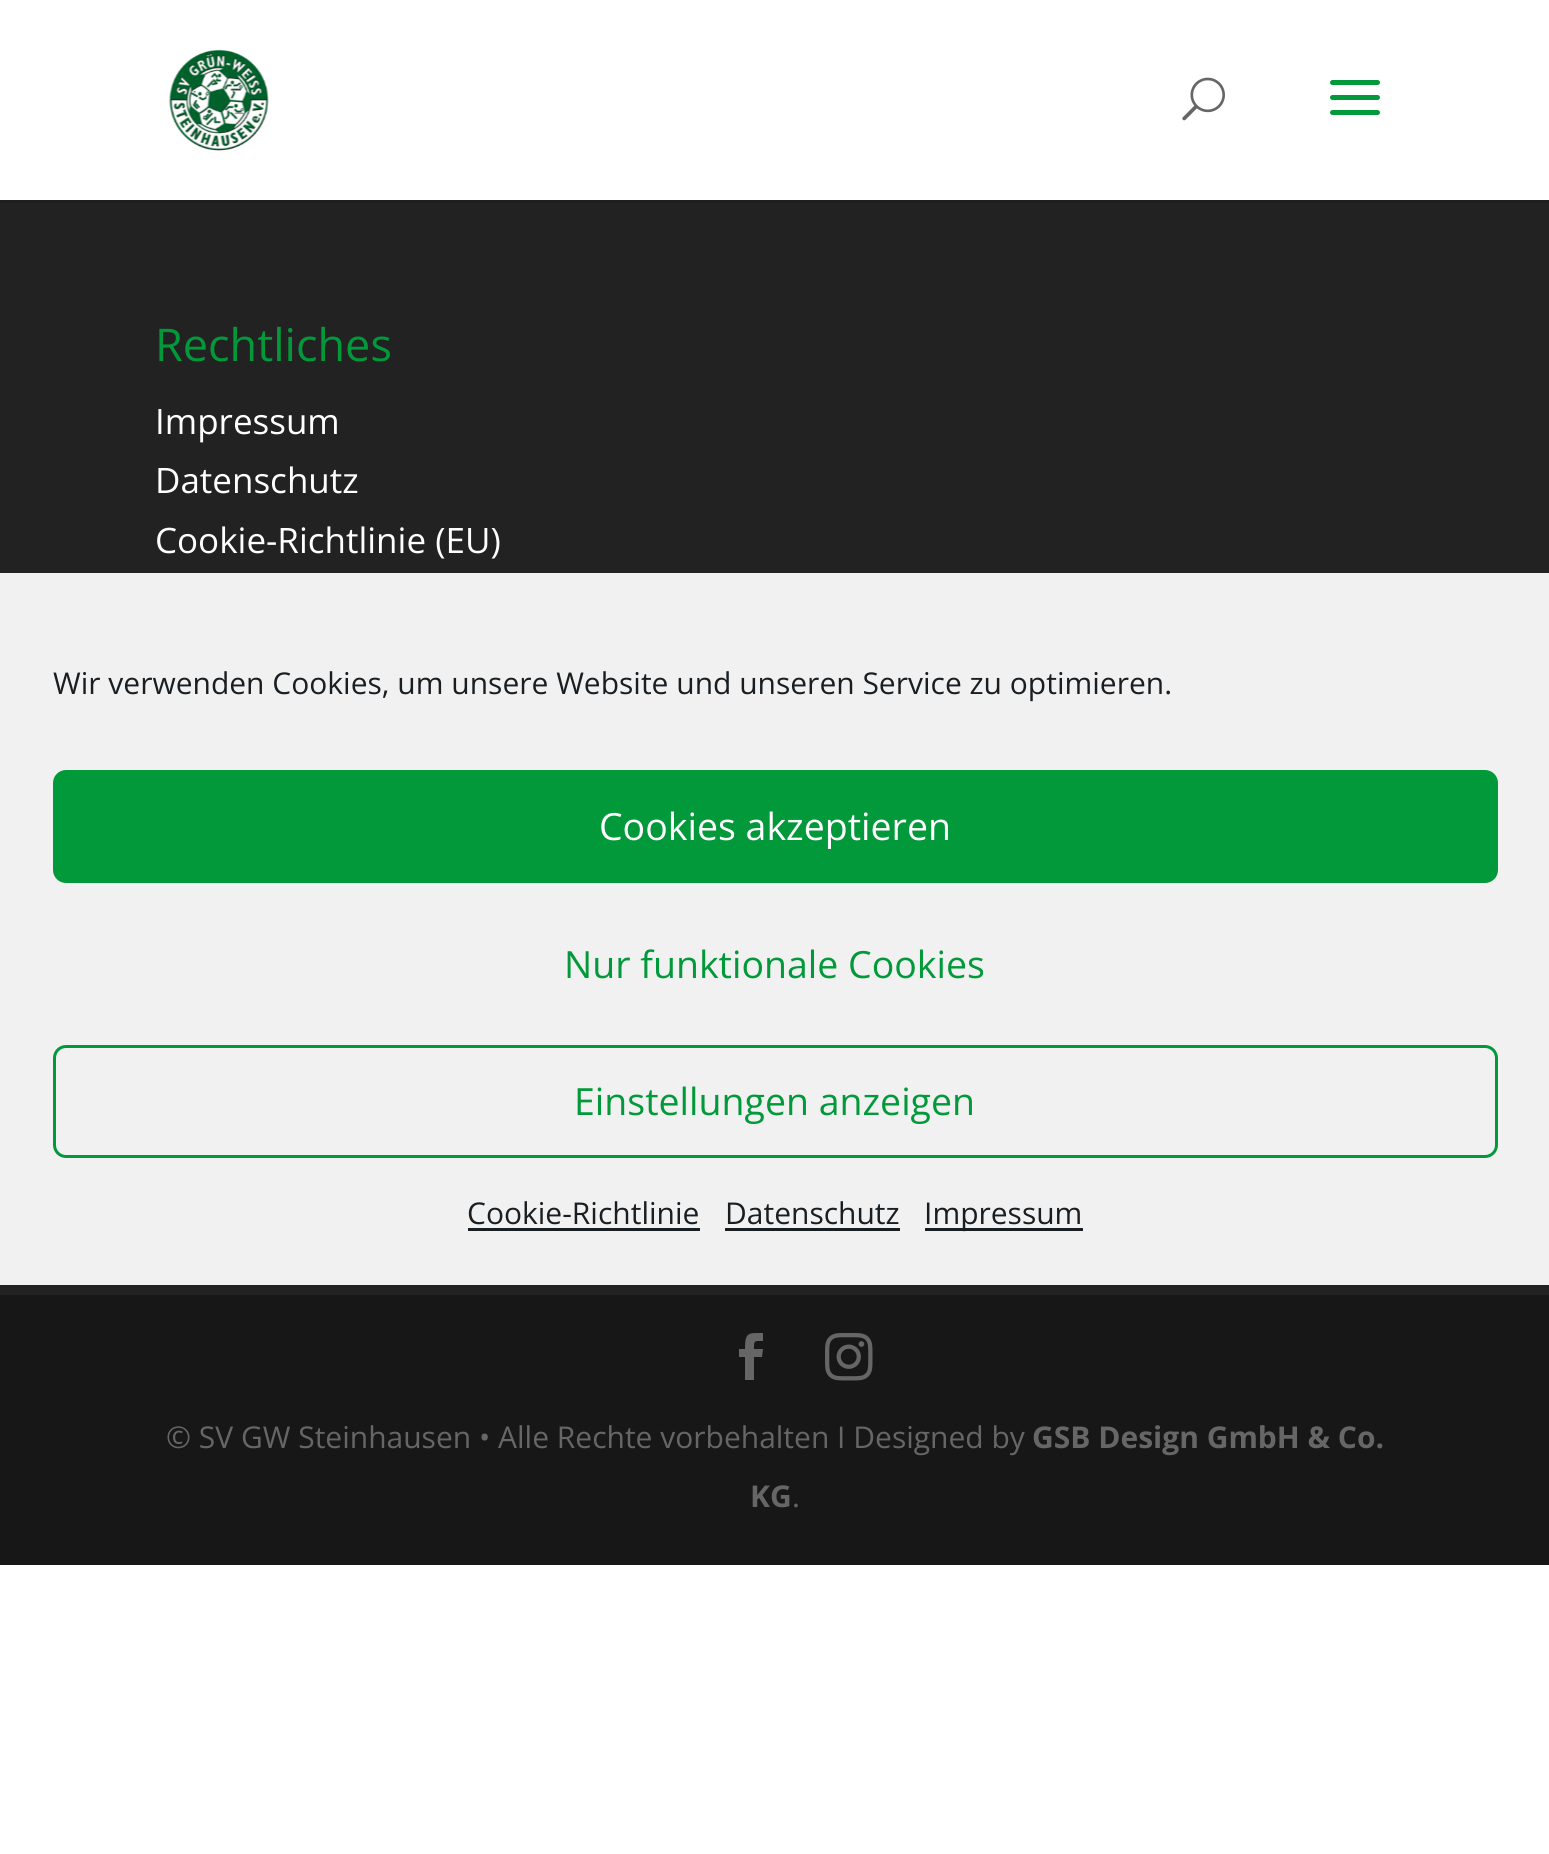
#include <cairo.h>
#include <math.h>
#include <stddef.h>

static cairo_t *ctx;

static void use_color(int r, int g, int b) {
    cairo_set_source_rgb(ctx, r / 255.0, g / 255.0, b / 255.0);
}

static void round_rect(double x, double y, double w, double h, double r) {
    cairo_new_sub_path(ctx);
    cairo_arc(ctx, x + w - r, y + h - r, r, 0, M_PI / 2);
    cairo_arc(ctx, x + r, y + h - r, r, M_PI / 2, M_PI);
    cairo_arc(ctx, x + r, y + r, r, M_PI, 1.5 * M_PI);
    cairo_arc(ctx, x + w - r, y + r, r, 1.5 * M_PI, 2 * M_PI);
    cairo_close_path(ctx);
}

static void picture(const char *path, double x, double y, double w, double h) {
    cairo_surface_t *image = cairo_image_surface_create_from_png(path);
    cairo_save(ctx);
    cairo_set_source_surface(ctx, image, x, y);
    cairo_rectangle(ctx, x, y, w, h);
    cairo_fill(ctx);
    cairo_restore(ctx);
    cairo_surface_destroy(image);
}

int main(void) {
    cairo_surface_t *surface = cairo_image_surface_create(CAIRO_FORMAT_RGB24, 1549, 1854);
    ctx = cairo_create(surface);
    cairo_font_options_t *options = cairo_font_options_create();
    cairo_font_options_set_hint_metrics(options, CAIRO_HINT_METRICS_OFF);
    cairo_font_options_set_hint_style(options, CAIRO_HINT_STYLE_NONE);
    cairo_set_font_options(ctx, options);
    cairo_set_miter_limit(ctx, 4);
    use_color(255, 255, 255);
    cairo_paint(ctx);
    use_color(31, 31, 31);
    cairo_rectangle(ctx, 0, 200, 1549, 3);
    cairo_fill(ctx);
    picture("img1.png", 169, 49, 100, 102);
    picture("img2.png", 1182, 77, 43, 44);
    picture("img3.png", 1330, 80, 50, 35);
    use_color(34, 34, 34);
    cairo_rectangle(ctx, 0, 203, 1549, 1092);
    cairo_fill(ctx);
    cairo_select_font_face(ctx, "Open Sans", CAIRO_FONT_SLANT_NORMAL, CAIRO_FONT_WEIGHT_NORMAL);
    cairo_set_font_size(ctx, 45);
    use_color(1, 153, 57);
    cairo_move_to(ctx, 155, 361);
    cairo_show_text(ctx, "Rechtliches");
    cairo_set_font_size(ctx, 35);
    use_color(255, 255, 255);
    cairo_move_to(ctx, 155, 434);
    cairo_show_text(ctx, "Impressum");
    cairo_move_to(ctx, 155, 493);
    cairo_show_text(ctx, "Datenschutz");
    cairo_move_to(ctx, 155, 553);
    cairo_show_text(ctx, "Cookie-Richtlinie (EU)");
    use_color(23, 23, 23);
    cairo_rectangle(ctx, 0, 1295, 1549, 270);
    cairo_fill(ctx);
    use_color(102, 102, 102);
    cairo_new_path(ctx);
    cairo_move_to(ctx, 745, 1380);
    cairo_line_to(ctx, 754, 1380);
    cairo_line_to(ctx, 754, 1357);
    cairo_line_to(ctx, 762, 1357);
    cairo_line_to(ctx, 763, 1349);
    cairo_line_to(ctx, 754, 1349);
    cairo_curve_to(ctx, 754, 1340, 754, 1341, 763, 1341);
    cairo_line_to(ctx, 763, 1333);
    cairo_curve_to(ctx, 748, 1333, 745, 1332, 745, 1349);
    cairo_line_to(ctx, 739, 1349);
    cairo_line_to(ctx, 739, 1357);
    cairo_line_to(ctx, 745, 1357);
    cairo_close_path(ctx);
    cairo_fill(ctx);
    picture("img4.png", 825, 1333, 48, 48);
    cairo_set_font_size(ctx, 30);
    cairo_move_to(ctx, 166, 1448);
    cairo_show_text(ctx, "© SV GW Steinhausen • Alle Rechte vorbehalten I Designed by");
    cairo_select_font_face(ctx, "Open Sans", CAIRO_FONT_SLANT_NORMAL, CAIRO_FONT_WEIGHT_BOLD);
    cairo_move_to(ctx, 1032, 1448);
    cairo_show_text(ctx, "GSB Design GmbH & Co.");
    cairo_move_to(ctx, 750, 1507);
    cairo_show_text(ctx, "KG");
    cairo_select_font_face(ctx, "Open Sans", CAIRO_FONT_SLANT_NORMAL, CAIRO_FONT_WEIGHT_NORMAL);
    cairo_move_to(ctx, 792, 1507);
    cairo_show_text(ctx, ".");
    use_color(241, 241, 241);
    cairo_rectangle(ctx, 0, 573, 1549, 712);
    cairo_fill(ctx);
    use_color(25, 30, 35);
    cairo_move_to(ctx, 53, 694);
    cairo_show_text(ctx, "Wir verwenden Cookies, um unsere Website und unseren Service zu optimieren.");
    use_color(1, 153, 57);
    round_rect(54.5, 771.5, 1442, 110, 11.5);
    cairo_fill_preserve(ctx);
    cairo_set_line_width(ctx, 3);
    cairo_stroke(ctx);
    cairo_set_font_size(ctx, 37.5);
    use_color(255, 255, 255);
    cairo_move_to(ctx, 599, 840);
    cairo_show_text(ctx, "Cookies akzeptieren");
    use_color(1, 153, 57);
    cairo_move_to(ctx, 564, 978);
    cairo_show_text(ctx, "Nur funktionale Cookies");
    round_rect(54.5, 1046.5, 1442, 110, 11.5);
    cairo_stroke(ctx);
    cairo_move_to(ctx, 574, 1115);
    cairo_show_text(ctx, "Einstellungen anzeigen");
    cairo_set_font_size(ctx, 30);
    use_color(25, 30, 35);
    cairo_move_to(ctx, 467, 1224);
    cairo_show_text(ctx, "Cookie-Richtlinie");
    cairo_rectangle(ctx, 468, 1228, 232, 3);
    cairo_fill(ctx);
    cairo_move_to(ctx, 725, 1224);
    cairo_show_text(ctx, "Datenschutz");
    cairo_rectangle(ctx, 725, 1228, 175, 3);
    cairo_fill(ctx);
    cairo_rectangle(ctx, 925, 1228, 158, 3);
    cairo_fill(ctx);
    cairo_move_to(ctx, 924, 1224);
    cairo_show_text(ctx, "Impressum");
    cairo_surface_write_to_png(surface, "result.png");
    cairo_font_options_destroy(options);
    cairo_destroy(ctx);
    cairo_surface_destroy(surface);
    return 0;
}
